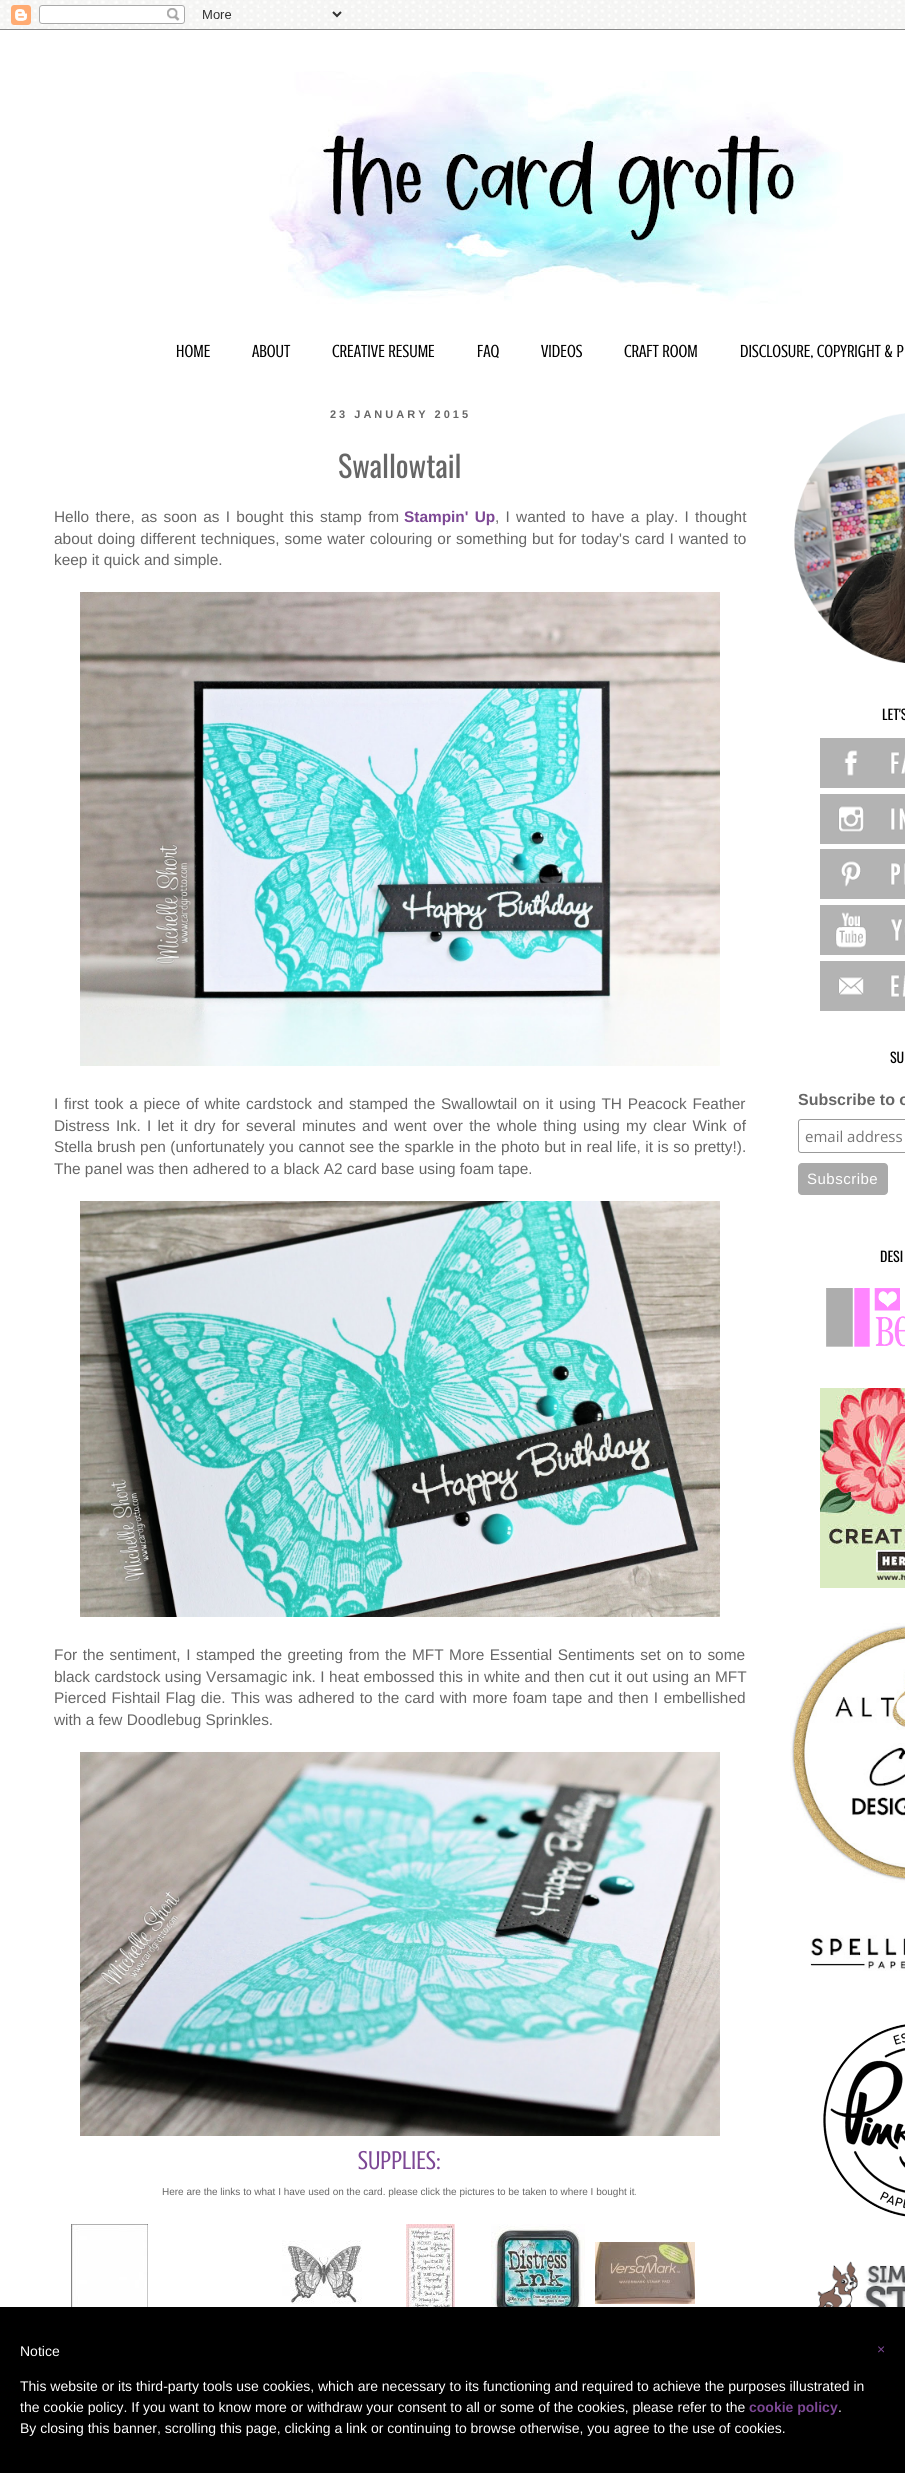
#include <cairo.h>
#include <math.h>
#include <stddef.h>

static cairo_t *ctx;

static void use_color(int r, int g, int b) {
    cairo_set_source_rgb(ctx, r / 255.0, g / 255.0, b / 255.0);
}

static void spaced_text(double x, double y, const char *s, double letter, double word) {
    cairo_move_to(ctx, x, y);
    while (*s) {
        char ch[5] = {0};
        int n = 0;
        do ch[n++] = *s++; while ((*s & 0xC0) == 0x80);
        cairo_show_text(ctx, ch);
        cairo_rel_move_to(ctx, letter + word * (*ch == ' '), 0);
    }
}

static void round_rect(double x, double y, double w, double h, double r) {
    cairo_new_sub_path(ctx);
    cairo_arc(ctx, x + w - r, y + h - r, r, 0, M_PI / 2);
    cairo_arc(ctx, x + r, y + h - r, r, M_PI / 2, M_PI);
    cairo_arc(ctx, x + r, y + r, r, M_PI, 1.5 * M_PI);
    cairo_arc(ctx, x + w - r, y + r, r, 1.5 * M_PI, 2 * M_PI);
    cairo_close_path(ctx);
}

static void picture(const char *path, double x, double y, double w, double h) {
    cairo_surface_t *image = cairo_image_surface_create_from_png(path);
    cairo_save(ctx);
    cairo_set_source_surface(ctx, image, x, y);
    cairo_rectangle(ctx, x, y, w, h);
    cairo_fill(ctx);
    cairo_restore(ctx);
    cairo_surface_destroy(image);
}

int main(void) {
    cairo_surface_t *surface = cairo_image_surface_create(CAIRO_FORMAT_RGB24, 905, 2473);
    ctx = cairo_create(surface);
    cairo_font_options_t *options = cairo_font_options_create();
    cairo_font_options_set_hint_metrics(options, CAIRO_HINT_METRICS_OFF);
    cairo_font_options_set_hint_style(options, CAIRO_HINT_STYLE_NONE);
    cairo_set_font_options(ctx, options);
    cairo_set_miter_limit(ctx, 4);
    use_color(255, 255, 255);
    cairo_paint(ctx);
    picture("img1.png", 0, 0, 905, 29);
    picture("img2.png", 0, 0, 905, 30);
    picture("img3.png", 269, 71, 574, 233);
    cairo_select_font_face(ctx, "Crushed", CAIRO_FONT_SLANT_NORMAL, CAIRO_FONT_WEIGHT_NORMAL);
    cairo_set_font_size(ctx, 18);
    use_color(0, 0, 0);
    cairo_move_to(ctx, 176, 357);
    cairo_show_text(ctx, "HOME");
    cairo_move_to(ctx, 252, 357);
    cairo_show_text(ctx, "ABOUT");
    cairo_move_to(ctx, 332, 357);
    cairo_show_text(ctx, "CREATIVE RESUME");
    cairo_move_to(ctx, 477, 357);
    cairo_show_text(ctx, "FAQ");
    cairo_move_to(ctx, 541, 357);
    cairo_show_text(ctx, "VIDEOS");
    cairo_move_to(ctx, 624, 357);
    cairo_show_text(ctx, "CRAFT ROOM");
    cairo_move_to(ctx, 740, 357);
    cairo_show_text(ctx, "DISCLOSURE, COPYRIGHT & P");
    cairo_select_font_face(ctx, "Liberation Sans", CAIRO_FONT_SLANT_NORMAL, CAIRO_FONT_WEIGHT_BOLD);
    cairo_set_font_size(ctx, 11);
    use_color(102, 102, 102);
    spaced_text(330, 418, "23 JANUARY 2015", 3, 0);
    cairo_select_font_face(ctx, "Oswald", CAIRO_FONT_SLANT_NORMAL, CAIRO_FONT_WEIGHT_NORMAL);
    cairo_set_font_size(ctx, 30);
    cairo_move_to(ctx, 338, 478);
    cairo_show_text(ctx, "Swallowtail");
    cairo_select_font_face(ctx, "Liberation Sans", CAIRO_FONT_SLANT_NORMAL, CAIRO_FONT_WEIGHT_NORMAL);
    cairo_set_font_size(ctx, 15.4);
    spaced_text(54, 522, "Hello there, as soon as I bought this stamp from", 0, 2);
    cairo_select_font_face(ctx, "Liberation Sans", CAIRO_FONT_SLANT_NORMAL, CAIRO_FONT_WEIGHT_BOLD);
    use_color(125, 72, 149);
    spaced_text(404, 522, "Stampin' Up", 0, 2);
    cairo_select_font_face(ctx, "Liberation Sans", CAIRO_FONT_SLANT_NORMAL, CAIRO_FONT_WEIGHT_NORMAL);
    use_color(102, 102, 102);
    spaced_text(495, 522, ", I wanted to have a play. I thought", 0, 2);
    spaced_text(54, 544, "about doing different techniques, some water colouring or something but for today's card I wanted to", 0, 0.7);
    cairo_move_to(ctx, 54, 565);
    cairo_show_text(ctx, "keep it quick and simple.");
    picture("img4.png", 80, 592, 640, 474);
    spaced_text(54, 1109, "I first took a piece of white cardstock and stamped the Swallowtail on it using TH Peacock Feather", 0, 1.4);
    spaced_text(54, 1131, "Distress Ink. I let it dry for several minutes and went over the whole thing using my clear Wink of", 0, 2);
    spaced_text(54, 1152, "Stella brush pen (unfortunately you cannot see the sparkle in the photo but in real life, it is so pretty!).", 0, 0.25);
    cairo_move_to(ctx, 54, 1174);
    cairo_show_text(ctx, "The panel was then adhered to a black A2 card base using foam tape.");
    picture("img5.png", 80, 1201, 640, 416);
    spaced_text(54, 1660, "For the sentiment, I stamped the greeting from the MFT More Essential Sentiments set on to some", 0, 1.25);
    spaced_text(54, 1682, "black cardstock using Versamagic ink. I heat embossed this in white and then cut it out using an MFT", 0, 0.2);
    spaced_text(54, 1703, "Pierced Fishtail Flag die. This was adhered to the card with more foam tape and then I embellished", 0, 1);
    cairo_move_to(ctx, 54, 1725);
    cairo_show_text(ctx, "with a few Doodlebug Sprinkles.");
    picture("img6.png", 80, 1752, 640, 384);
    cairo_select_font_face(ctx, "Crushed", CAIRO_FONT_SLANT_NORMAL, CAIRO_FONT_WEIGHT_NORMAL);
    cairo_set_font_size(ctx, 26.5);
    use_color(125, 72, 149);
    cairo_move_to(ctx, 358, 2169);
    cairo_show_text(ctx, "SUPPLIES:");
    cairo_select_font_face(ctx, "Liberation Sans", CAIRO_FONT_SLANT_NORMAL, CAIRO_FONT_WEIGHT_NORMAL);
    cairo_set_font_size(ctx, 10);
    use_color(102, 102, 102);
    cairo_move_to(ctx, 162, 2195);
    cairo_show_text(ctx, "Here are the links to what I have used on the card. please click the pictures to be taken to where I bought it.");
    picture("img7.png", 71, 2224, 77, 83);
    picture("img8.png", 282, 2240, 80, 64);
    picture("img9.png", 406, 2224, 49, 83);
    picture("img10.png", 491, 2224, 94, 83);
    picture("img11.png", 595, 2242, 100, 62);
    picture("img12.png", 794, 413, 111, 250);
    cairo_select_font_face(ctx, "Oswald", CAIRO_FONT_SLANT_NORMAL, CAIRO_FONT_WEIGHT_NORMAL);
    cairo_set_font_size(ctx, 14);
    use_color(0, 0, 0);
    cairo_move_to(ctx, 882, 720);
    cairo_show_text(ctx, "LET'S");
    picture("img13.png", 820, 738, 85, 50);
    picture("img14.png", 820, 794, 85, 50);
    picture("img15.png", 820, 849, 85, 50);
    picture("img16.png", 820, 905, 85, 50);
    picture("img17.png", 820, 961, 85, 50);
    cairo_move_to(ctx, 890, 1063);
    cairo_show_text(ctx, "SU");
    cairo_select_font_face(ctx, "Liberation Sans", CAIRO_FONT_SLANT_NORMAL, CAIRO_FONT_WEIGHT_BOLD);
    cairo_set_font_size(ctx, 16);
    use_color(102, 102, 102);
    cairo_move_to(ctx, 798, 1105);
    cairo_show_text(ctx, "Subscribe to o");
    round_rect(798.5, 1119.5, 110, 33, 2.5);
    use_color(153, 153, 153);
    cairo_set_line_width(ctx, 1);
    cairo_stroke(ctx);
    cairo_select_font_face(ctx, "Open Sans", CAIRO_FONT_SLANT_NORMAL, CAIRO_FONT_WEIGHT_NORMAL);
    cairo_set_font_size(ctx, 15);
    use_color(117, 117, 117);
    cairo_move_to(ctx, 805, 1142);
    cairo_show_text(ctx, "email address");
    use_color(170, 170, 170);
    round_rect(798, 1163, 90, 32, 4);
    cairo_fill(ctx);
    cairo_select_font_face(ctx, "Liberation Sans", CAIRO_FONT_SLANT_NORMAL, CAIRO_FONT_WEIGHT_NORMAL);
    use_color(255, 255, 255);
    spaced_text(807, 1184, "Subscribe", 0.5, 0);
    cairo_select_font_face(ctx, "Oswald", CAIRO_FONT_SLANT_NORMAL, CAIRO_FONT_WEIGHT_NORMAL);
    cairo_set_font_size(ctx, 14);
    use_color(0, 0, 0);
    cairo_move_to(ctx, 880, 1262);
    cairo_show_text(ctx, "DESI");
    picture("img18.png", 826, 1288, 79, 59);
    picture("img19.png", 820, 1388, 85, 200);
    picture("img20.png", 790, 1623, 115, 260);
    picture("img21.png", 810, 1935, 95, 36);
    picture("img22.png", 823, 2024, 82, 193);
    picture("img23.png", 790, 2261, 115, 46);
    cairo_rectangle(ctx, 0, 2307, 905, 166);
    cairo_fill(ctx);
    cairo_select_font_face(ctx, "Liberation Sans", CAIRO_FONT_SLANT_NORMAL, CAIRO_FONT_WEIGHT_NORMAL);
    use_color(255, 255, 255);
    cairo_move_to(ctx, 20, 2356);
    cairo_show_text(ctx, "Notice");
    cairo_move_to(ctx, 20, 2391);
    cairo_show_text(ctx, "This website or its third-party tools use cookies, which are necessary to its functioning and required to achieve the purposes illustrated in");
    cairo_move_to(ctx, 20, 2412);
    cairo_show_text(ctx, "the cookie policy. If you want to know more or withdraw your consent to all or some of the cookies, please refer to the");
    cairo_select_font_face(ctx, "Liberation Sans", CAIRO_FONT_SLANT_NORMAL, CAIRO_FONT_WEIGHT_BOLD);
    use_color(125, 72, 149);
    cairo_move_to(ctx, 749, 2412);
    cairo_show_text(ctx, "cookie policy");
    cairo_select_font_face(ctx, "Liberation Sans", CAIRO_FONT_SLANT_NORMAL, CAIRO_FONT_WEIGHT_NORMAL);
    use_color(255, 255, 255);
    cairo_move_to(ctx, 838, 2412);
    cairo_show_text(ctx, ".");
    cairo_move_to(ctx, 20, 2433);
    cairo_show_text(ctx, "By closing this banner, scrolling this page, clicking a link or continuing to browse otherwise, you agree to the use of cookies.");
    use_color(125, 72, 149);
    cairo_move_to(ctx, 877, 2354);
    cairo_show_text(ctx, "×");
    cairo_surface_write_to_png(surface, "result.png");
    cairo_font_options_destroy(options);
    cairo_destroy(ctx);
    cairo_surface_destroy(surface);
    return 0;
}
